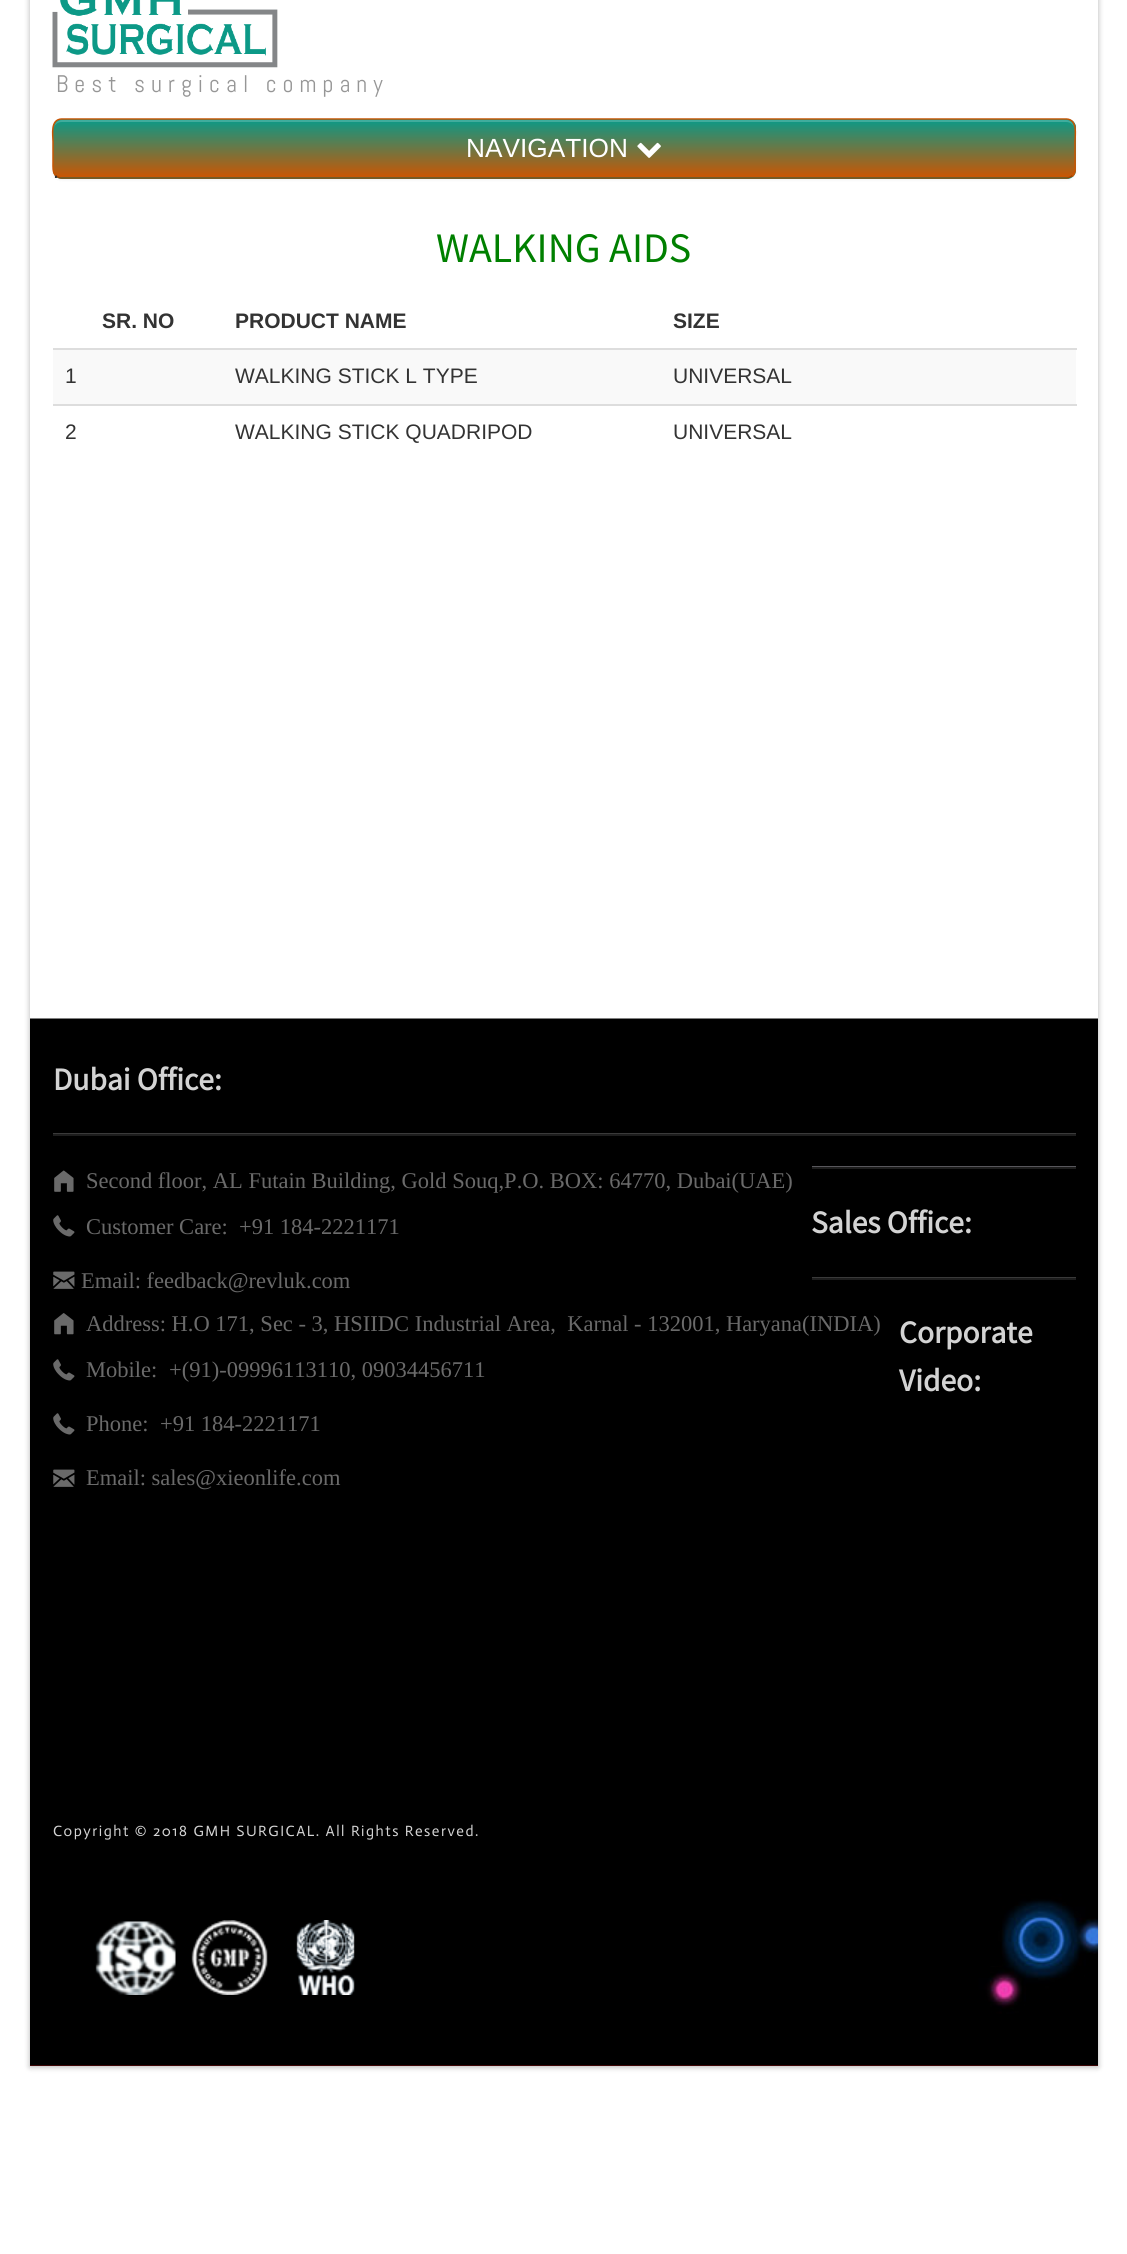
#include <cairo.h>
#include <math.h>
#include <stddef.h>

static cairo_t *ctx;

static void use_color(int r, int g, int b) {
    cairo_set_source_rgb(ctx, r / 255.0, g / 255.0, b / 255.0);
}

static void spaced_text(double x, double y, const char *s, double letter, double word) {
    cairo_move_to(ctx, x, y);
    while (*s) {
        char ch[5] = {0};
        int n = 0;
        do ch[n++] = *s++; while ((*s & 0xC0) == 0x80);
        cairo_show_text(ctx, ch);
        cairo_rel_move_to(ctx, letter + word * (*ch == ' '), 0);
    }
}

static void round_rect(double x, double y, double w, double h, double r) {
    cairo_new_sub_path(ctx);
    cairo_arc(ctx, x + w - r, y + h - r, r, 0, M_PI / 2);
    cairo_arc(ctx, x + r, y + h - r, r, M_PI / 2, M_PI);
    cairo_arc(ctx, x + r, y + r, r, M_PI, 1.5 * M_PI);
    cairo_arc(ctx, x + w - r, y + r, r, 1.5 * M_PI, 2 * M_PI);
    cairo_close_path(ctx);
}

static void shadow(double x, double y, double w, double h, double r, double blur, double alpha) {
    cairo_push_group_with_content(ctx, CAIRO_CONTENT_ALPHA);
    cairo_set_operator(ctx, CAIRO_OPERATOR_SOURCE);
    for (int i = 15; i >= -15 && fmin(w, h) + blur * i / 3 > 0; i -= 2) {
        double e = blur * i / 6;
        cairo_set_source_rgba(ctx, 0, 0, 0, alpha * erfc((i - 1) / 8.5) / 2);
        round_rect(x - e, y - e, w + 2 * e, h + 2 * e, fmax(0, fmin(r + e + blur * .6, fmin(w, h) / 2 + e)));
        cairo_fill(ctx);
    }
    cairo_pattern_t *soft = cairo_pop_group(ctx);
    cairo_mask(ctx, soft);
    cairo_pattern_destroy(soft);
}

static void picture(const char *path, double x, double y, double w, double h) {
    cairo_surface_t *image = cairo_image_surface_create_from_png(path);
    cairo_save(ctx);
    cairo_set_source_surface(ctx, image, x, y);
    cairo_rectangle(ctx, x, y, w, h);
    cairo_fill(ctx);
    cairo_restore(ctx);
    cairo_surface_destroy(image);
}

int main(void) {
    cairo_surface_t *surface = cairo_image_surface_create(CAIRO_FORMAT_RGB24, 1127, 2254);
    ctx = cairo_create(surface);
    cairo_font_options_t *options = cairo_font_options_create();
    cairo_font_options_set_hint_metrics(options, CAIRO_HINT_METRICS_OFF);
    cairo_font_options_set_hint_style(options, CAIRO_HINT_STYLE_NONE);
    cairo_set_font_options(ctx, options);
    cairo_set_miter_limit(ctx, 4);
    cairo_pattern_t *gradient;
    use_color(255, 255, 255);
    cairo_paint(ctx);
    use_color(0, 0, 0);
    shadow(30, -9, 1068, 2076, 0, 3, 0.3);
    use_color(255, 255, 255);
    cairo_rectangle(ctx, 30, 0, 1068, 1019);
    cairo_fill(ctx);
    picture("img1.png", 52, 0, 226, 68);
    cairo_select_font_face(ctx, "Abel", CAIRO_FONT_SLANT_NORMAL, CAIRO_FONT_WEIGHT_NORMAL);
    cairo_set_font_size(ctx, 24);
    use_color(150, 150, 150);
    spaced_text(56, 92, "Best surgical company", 6, 0);
    use_color(0, 0, 0);
    shadow(53, 120, 1023, 60, 9, 1.5, 0.05);
    use_color(12, 153, 135);
    round_rect(53, 119, 1023, 60, 9);
    cairo_fill(ctx);
    cairo_save(ctx);
    round_rect(53, 119, 1023, 60, 9);
    cairo_clip(ctx);
    gradient = cairo_pattern_create_linear(564, 120, 564, 177);
    cairo_pattern_add_color_stop_rgba(gradient, 0, 0.047, 0.6, 0.529, 1);
    cairo_pattern_add_color_stop_rgba(gradient, 1, 0.792, 0.337, 0.012, 1);
    cairo_set_source(ctx, gradient);
    cairo_pattern_destroy(gradient);
    cairo_rectangle(ctx, 53, 120, 1023, 57);
    cairo_fill(ctx);
    cairo_restore(ctx);
    cairo_set_source_rgba(ctx, 1, 1, 1, 0.2);
    cairo_new_path(ctx);
    cairo_move_to(ctx, 62, 122);
    cairo_line_to(ctx, 1066, 122);
    cairo_curve_to(ctx, 1071, 122, 1074, 125, 1074, 129);
    cairo_curve_to(ctx, 1074, 124, 1071, 120, 1066, 120);
    cairo_line_to(ctx, 62, 120);
    cairo_curve_to(ctx, 57, 120, 54, 124, 54, 129);
    cairo_curve_to(ctx, 54, 125, 57, 122, 62, 122);
    cairo_close_path(ctx);
    cairo_fill(ctx);
    cairo_new_path(ctx);
    cairo_move_to(ctx, 1072.5, 175.5);
    cairo_curve_to(ctx, 1071, 177, 1068.5, 178, 1066.5, 178);
    cairo_line_to(ctx, 61.5, 178);
    cairo_curve_to(ctx, 59.5, 178, 57, 177, 55.5, 175.5);
    use_color(157, 67, 2);
    cairo_set_line_width(ctx, 1.5);
    cairo_stroke(ctx);
    cairo_new_path(ctx);
    cairo_move_to(ctx, 55.5, 175.5);
    cairo_curve_to(ctx, 52.5, 172, 53, 167, 53, 162.5);
    cairo_line_to(ctx, 53, 141.5);
    cairo_curve_to(ctx, 53, 135, 50, 119.5, 61.5, 119);
    cairo_line_to(ctx, 1066.5, 119);
    cairo_curve_to(ctx, 1078, 119.5, 1075, 135, 1075, 141.5);
    cairo_line_to(ctx, 1075, 162.5);
    cairo_curve_to(ctx, 1075, 167, 1075.5, 172, 1072.5, 175.5);
    use_color(199, 85, 3);
    cairo_stroke(ctx);
    cairo_select_font_face(ctx, "Liberation Sans", CAIRO_FONT_SLANT_NORMAL, CAIRO_FONT_WEIGHT_NORMAL);
    cairo_set_font_size(ctx, 26.25);
    use_color(255, 255, 255);
    cairo_move_to(ctx, 466, 157);
    cairo_show_text(ctx, "NAVIGATION");
    picture("img2.png", 637, 142, 24, 16);
    cairo_set_font_size(ctx, 21);
    use_color(51, 51, 51);
    cairo_move_to(ctx, 53, 178);
    cairo_show_text(ctx, ".");
    cairo_select_font_face(ctx, "Source Sans Pro", CAIRO_FONT_SLANT_NORMAL, CAIRO_FONT_WEIGHT_NORMAL);
    cairo_set_font_size(ctx, 42);
    use_color(0, 128, 0);
    cairo_move_to(ctx, 436, 262);
    cairo_show_text(ctx, "WALKING AIDS");
    cairo_select_font_face(ctx, "Liberation Sans", CAIRO_FONT_SLANT_NORMAL, CAIRO_FONT_WEIGHT_BOLD);
    cairo_set_font_size(ctx, 21);
    use_color(51, 51, 51);
    cairo_move_to(ctx, 102, 328);
    cairo_show_text(ctx, "SR. NO");
    cairo_move_to(ctx, 235, 328);
    cairo_show_text(ctx, "PRODUCT NAME");
    cairo_move_to(ctx, 673, 328);
    cairo_show_text(ctx, "SIZE");
    use_color(249, 249, 249);
    cairo_rectangle(ctx, 53, 350, 1023, 54);
    cairo_fill(ctx);
    cairo_select_font_face(ctx, "Liberation Sans", CAIRO_FONT_SLANT_NORMAL, CAIRO_FONT_WEIGHT_NORMAL);
    use_color(51, 51, 51);
    cairo_move_to(ctx, 65, 383);
    cairo_show_text(ctx, "1");
    cairo_move_to(ctx, 235, 383);
    cairo_show_text(ctx, "WALKING STICK L TYPE");
    use_color(221, 221, 221);
    cairo_rectangle(ctx, 53, 348, 1024, 2);
    cairo_fill(ctx);
    use_color(51, 51, 51);
    cairo_move_to(ctx, 673, 383);
    cairo_show_text(ctx, "UNIVERSAL");
    cairo_move_to(ctx, 65, 439);
    cairo_show_text(ctx, "2");
    cairo_move_to(ctx, 235, 439);
    cairo_show_text(ctx, "WALKING STICK QUADRIPOD");
    use_color(221, 221, 221);
    cairo_rectangle(ctx, 53, 404, 1024, 2);
    cairo_fill(ctx);
    use_color(51, 51, 51);
    cairo_move_to(ctx, 673, 439);
    cairo_show_text(ctx, "UNIVERSAL");
    use_color(122, 12, 12);
    cairo_rectangle(ctx, 30, 2065, 1068, 1);
    cairo_fill(ctx);
    picture("img3.png", 30, 1018, 1068, 1048);
    cairo_select_font_face(ctx, "Source Sans Pro", CAIRO_FONT_SLANT_NORMAL, CAIRO_FONT_WEIGHT_BOLD);
    cairo_set_font_size(ctx, 31.5);
    use_color(211, 211, 211);
    cairo_move_to(ctx, 53, 1090);
    cairo_show_text(ctx, "Dubai Office:");
    use_color(58, 58, 58);
    cairo_rectangle(ctx, 53, 1133, 1023, 1);
    cairo_fill(ctx);
    use_color(29, 29, 29);
    cairo_rectangle(ctx, 53, 1134, 1023, 2);
    cairo_fill(ctx);
    use_color(88, 87, 92);
    cairo_rectangle(ctx, 812, 1166, 264, 1);
    cairo_fill(ctx);
    use_color(29, 29, 29);
    cairo_rectangle(ctx, 812, 1167, 264, 2);
    cairo_fill(ctx);
    picture("img4.png", 54, 1170, 20, 22);
    cairo_select_font_face(ctx, "Liberation Serif", CAIRO_FONT_SLANT_NORMAL, CAIRO_FONT_WEIGHT_NORMAL);
    cairo_set_font_size(ctx, 22.5);
    use_color(106, 106, 106);
    cairo_move_to(ctx, 86, 1188);
    cairo_show_text(ctx, "Second floor, AL Futain Building, Gold Souq,P.O. BOX: 64770, Dubai(UAE)");
    picture("img5.png", 53, 1215, 22, 22);
    cairo_move_to(ctx, 86, 1234);
    cairo_show_text(ctx, "Customer Care:");
    cairo_move_to(ctx, 239, 1234);
    cairo_show_text(ctx, "+91 184-2221171");
    picture("img6.png", 53, 1271, 22, 18);
    cairo_move_to(ctx, 81, 1288);
    cairo_show_text(ctx, "Email: feedback@revluk.com");
    cairo_select_font_face(ctx, "Source Sans Pro", CAIRO_FONT_SLANT_NORMAL, CAIRO_FONT_WEIGHT_BOLD);
    cairo_set_font_size(ctx, 31.5);
    use_color(211, 211, 211);
    cairo_move_to(ctx, 811, 1233);
    cairo_show_text(ctx, "Sales Office:");
    use_color(58, 58, 58);
    cairo_rectangle(ctx, 812, 1277, 264, 1);
    cairo_fill(ctx);
    use_color(29, 29, 29);
    cairo_rectangle(ctx, 812, 1278, 264, 2);
    cairo_fill(ctx);
    picture("img7.png", 54, 1313, 20, 22);
    cairo_select_font_face(ctx, "Liberation Serif", CAIRO_FONT_SLANT_NORMAL, CAIRO_FONT_WEIGHT_NORMAL);
    cairo_set_font_size(ctx, 22.5);
    use_color(106, 106, 106);
    cairo_move_to(ctx, 86, 1331);
    cairo_show_text(ctx, "Address: H.O 171, Sec - 3, HSIIDC Industrial Area,  Karnal - 132001, Haryana(INDIA)");
    picture("img5.png", 53, 1359, 22, 22);
    cairo_move_to(ctx, 86, 1377);
    cairo_show_text(ctx, "Mobile:");
    cairo_move_to(ctx, 169, 1377);
    cairo_show_text(ctx, "+(91)-09996113110, 09034456711");
    picture("img5.png", 53, 1413, 22, 22);
    cairo_move_to(ctx, 86, 1431);
    cairo_show_text(ctx, "Phone:");
    cairo_move_to(ctx, 160, 1431);
    cairo_show_text(ctx, "+91 184-2221171");
    picture("img6.png", 53, 1469, 22, 18);
    cairo_move_to(ctx, 86, 1485);
    cairo_show_text(ctx, "Email: sales@xieonlife.com");
    cairo_select_font_face(ctx, "Source Sans Pro", CAIRO_FONT_SLANT_NORMAL, CAIRO_FONT_WEIGHT_BOLD);
    cairo_set_font_size(ctx, 31.5);
    use_color(211, 211, 211);
    cairo_move_to(ctx, 899, 1343);
    cairo_show_text(ctx, "Corporate");
    cairo_move_to(ctx, 899, 1391);
    cairo_show_text(ctx, "Video:");
    cairo_select_font_face(ctx, "Actor", CAIRO_FONT_SLANT_NORMAL, CAIRO_FONT_WEIGHT_NORMAL);
    cairo_set_font_size(ctx, 15);
    spaced_text(53, 1836, "Copyright © 2018 GMH SURGICAL. All Rights Reserved.", 1.5, 0);
    picture("img8.png", 95, 1921, 81, 74);
    picture("img9.png", 191, 1920, 77, 75);
    picture("img10.png", 296, 1920, 59, 75);
    cairo_surface_write_to_png(surface, "result.png");
    cairo_font_options_destroy(options);
    cairo_destroy(ctx);
    cairo_surface_destroy(surface);
    return 0;
}
